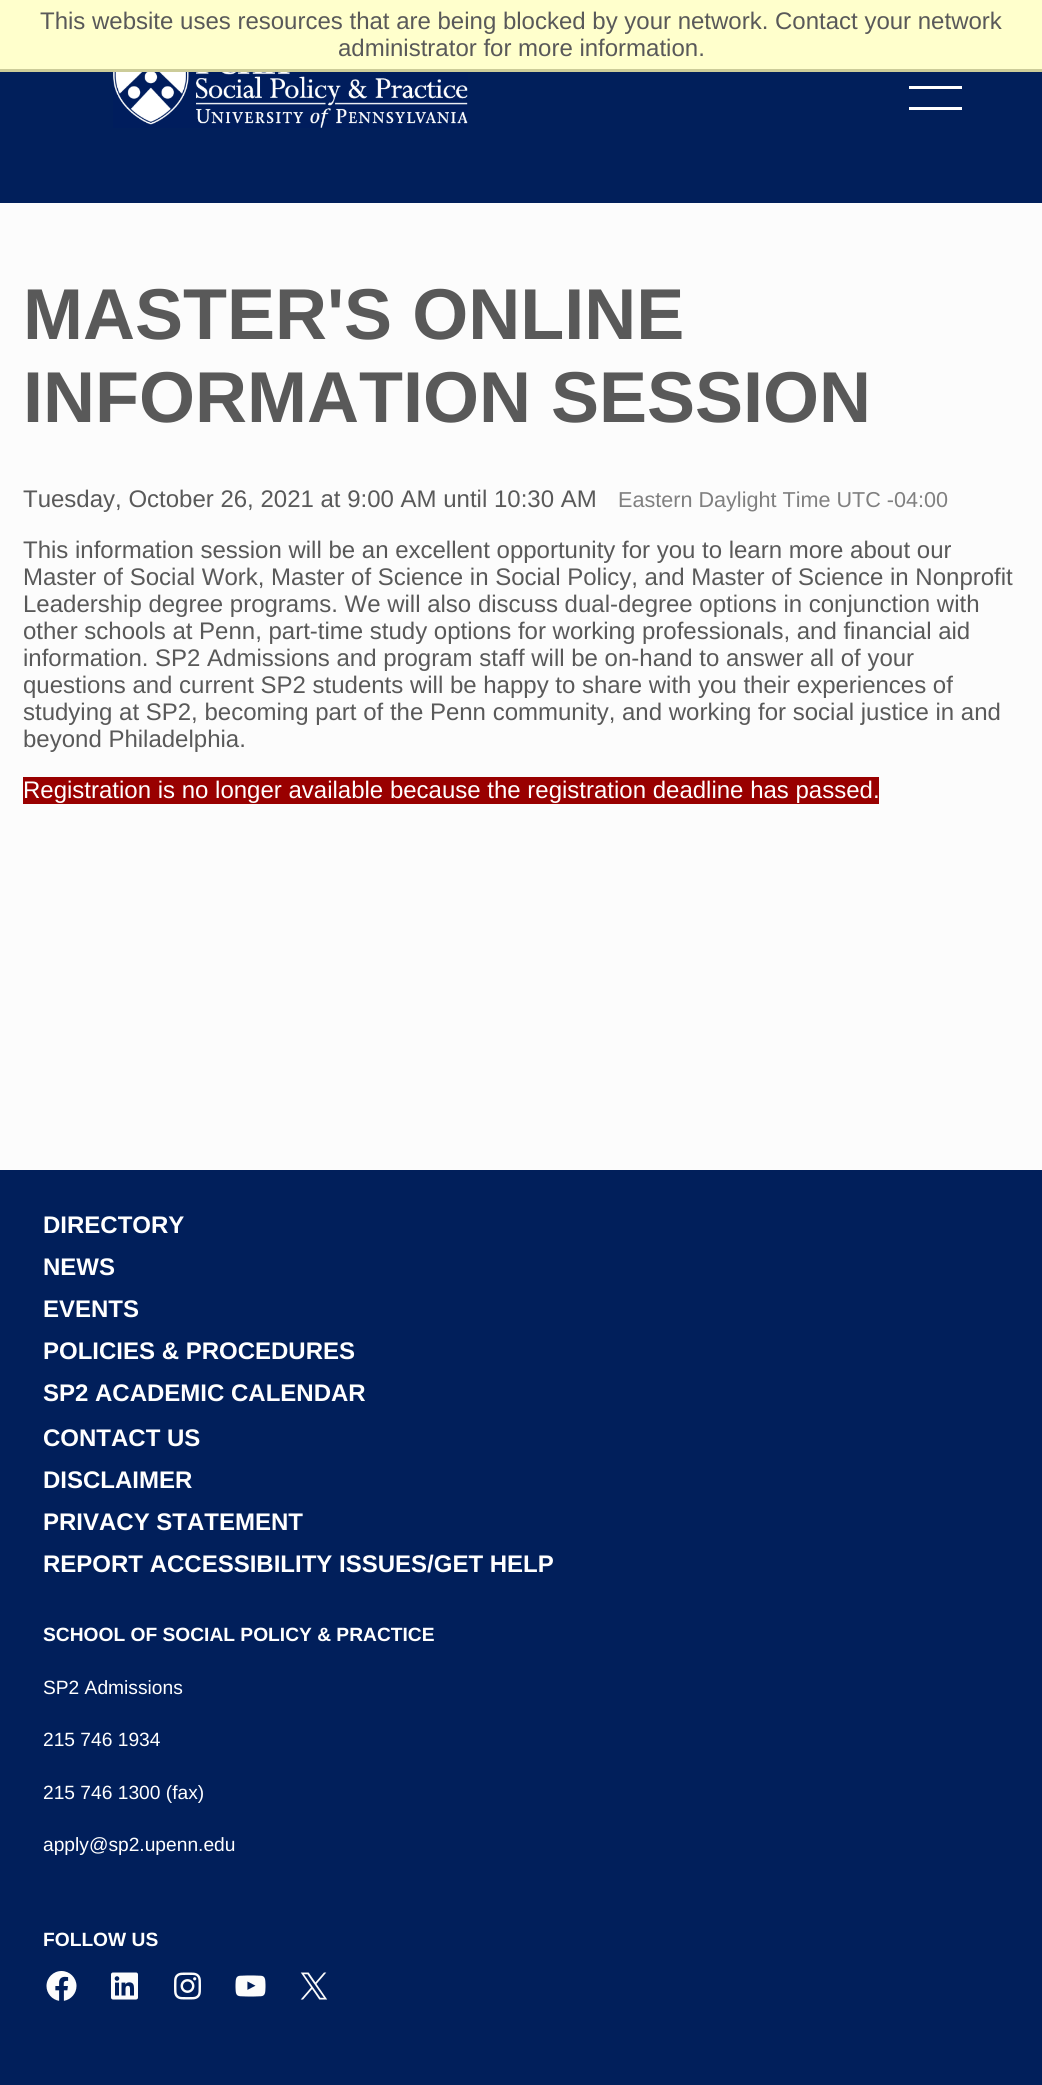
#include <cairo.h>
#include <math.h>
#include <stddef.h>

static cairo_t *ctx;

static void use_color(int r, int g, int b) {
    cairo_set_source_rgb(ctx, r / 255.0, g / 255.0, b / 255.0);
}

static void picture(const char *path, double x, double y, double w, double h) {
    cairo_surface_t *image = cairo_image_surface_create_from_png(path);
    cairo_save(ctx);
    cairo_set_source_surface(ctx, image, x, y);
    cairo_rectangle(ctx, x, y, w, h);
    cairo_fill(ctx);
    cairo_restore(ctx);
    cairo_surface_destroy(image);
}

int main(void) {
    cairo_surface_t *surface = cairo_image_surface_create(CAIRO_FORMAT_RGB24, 1042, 2085);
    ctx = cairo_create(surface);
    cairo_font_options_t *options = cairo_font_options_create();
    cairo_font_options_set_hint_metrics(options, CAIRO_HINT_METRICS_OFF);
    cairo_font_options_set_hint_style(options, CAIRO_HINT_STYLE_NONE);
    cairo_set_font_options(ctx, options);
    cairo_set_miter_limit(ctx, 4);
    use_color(252, 252, 252);
    cairo_paint(ctx);
    use_color(255, 255, 204);
    cairo_rectangle(ctx, 0, 0, 1042, 69);
    cairo_fill(ctx);
    use_color(204, 204, 153);
    cairo_rectangle(ctx, 0, 69, 1042, 3);
    cairo_fill(ctx);
    cairo_select_font_face(ctx, "Liberation Sans", CAIRO_FONT_SLANT_NORMAL, CAIRO_FONT_WEIGHT_NORMAL);
    cairo_set_font_size(ctx, 24);
    use_color(89, 89, 89);
    cairo_move_to(ctx, 40, 29);
    cairo_show_text(ctx, "This website uses resources that are being blocked by your network. Contact your network");
    cairo_move_to(ctx, 338, 56);
    cairo_show_text(ctx, "administrator for more information.");
    use_color(1, 31, 91);
    cairo_rectangle(ctx, 0, 72, 1042, 131);
    cairo_fill(ctx);
    picture("img1.png", 113, 72, 355, 56);
    use_color(255, 255, 255);
    cairo_rectangle(ctx, 909, 86, 53, 3);
    cairo_fill(ctx);
    cairo_rectangle(ctx, 909, 107, 53, 3);
    cairo_fill(ctx);
    cairo_select_font_face(ctx, "Liberation Sans", CAIRO_FONT_SLANT_NORMAL, CAIRO_FONT_WEIGHT_BOLD);
    cairo_set_font_size(ctx, 72);
    use_color(89, 89, 89);
    cairo_move_to(ctx, 23, 339);
    cairo_show_text(ctx, "MASTER'S ONLINE");
    cairo_move_to(ctx, 23, 422);
    cairo_show_text(ctx, "INFORMATION SESSION");
    cairo_select_font_face(ctx, "Liberation Sans", CAIRO_FONT_SLANT_NORMAL, CAIRO_FONT_WEIGHT_NORMAL);
    cairo_set_font_size(ctx, 24);
    cairo_move_to(ctx, 23, 507);
    cairo_show_text(ctx, "Tuesday, October 26, 2021 at 9:00 AM until 10:30 AM");
    cairo_set_font_size(ctx, 21.6);
    use_color(128, 128, 128);
    cairo_move_to(ctx, 618, 507);
    cairo_show_text(ctx, "Eastern Daylight Time UTC -04:00");
    cairo_set_font_size(ctx, 24);
    use_color(89, 89, 89);
    cairo_move_to(ctx, 23, 558);
    cairo_show_text(ctx, "This information session will be an excellent opportunity for you to learn more about our");
    cairo_move_to(ctx, 23, 585);
    cairo_show_text(ctx, "Master of Social Work, Master of Science in Social Policy, and Master of Science in Nonprofit");
    cairo_move_to(ctx, 23, 612);
    cairo_show_text(ctx, "Leadership degree programs. We will also discuss dual-degree options in conjunction with");
    cairo_move_to(ctx, 23, 639);
    cairo_show_text(ctx, "other schools at Penn, part-time study options for working professionals, and financial aid");
    cairo_move_to(ctx, 23, 666);
    cairo_show_text(ctx, "information. SP2 Admissions and program staff will be on-hand to answer all of your");
    cairo_move_to(ctx, 23, 693);
    cairo_show_text(ctx, "questions and current SP2 students will be happy to share with you their experiences of");
    cairo_move_to(ctx, 23, 720);
    cairo_show_text(ctx, "studying at SP2, becoming part of the Penn community, and working for social justice in and");
    cairo_move_to(ctx, 23, 747);
    cairo_show_text(ctx, "beyond Philadelphia.");
    use_color(153, 0, 0);
    cairo_rectangle(ctx, 23, 777, 856, 27);
    cairo_fill(ctx);
    use_color(255, 255, 255);
    cairo_move_to(ctx, 23, 798);
    cairo_show_text(ctx, "Registration is no longer available because the registration deadline has passed.");
    use_color(1, 31, 91);
    cairo_rectangle(ctx, 0, 1170, 1042, 915);
    cairo_fill(ctx);
    cairo_select_font_face(ctx, "Liberation Sans", CAIRO_FONT_SLANT_NORMAL, CAIRO_FONT_WEIGHT_BOLD);
    use_color(255, 255, 255);
    cairo_move_to(ctx, 43, 1233);
    cairo_show_text(ctx, "DIRECTORY");
    cairo_move_to(ctx, 43, 1275);
    cairo_show_text(ctx, "NEWS");
    cairo_move_to(ctx, 43, 1317);
    cairo_show_text(ctx, "EVENTS");
    cairo_move_to(ctx, 43, 1359);
    cairo_show_text(ctx, "POLICIES & PROCEDURES");
    cairo_move_to(ctx, 43, 1401);
    cairo_show_text(ctx, "SP2 ACADEMIC CALENDAR");
    cairo_move_to(ctx, 43, 1446);
    cairo_show_text(ctx, "CONTACT US");
    cairo_move_to(ctx, 43, 1488);
    cairo_show_text(ctx, "DISCLAIMER");
    cairo_move_to(ctx, 43, 1530);
    cairo_show_text(ctx, "PRIVACY STATEMENT");
    cairo_move_to(ctx, 43, 1572);
    cairo_show_text(ctx, "REPORT ACCESSIBILITY ISSUES/GET HELP");
    cairo_set_font_size(ctx, 19.2);
    cairo_move_to(ctx, 43, 1641);
    cairo_show_text(ctx, "SCHOOL OF SOCIAL POLICY & PRACTICE");
    cairo_select_font_face(ctx, "Liberation Sans", CAIRO_FONT_SLANT_NORMAL, CAIRO_FONT_WEIGHT_NORMAL);
    cairo_move_to(ctx, 43, 1694);
    cairo_show_text(ctx, "SP2 Admissions");
    cairo_move_to(ctx, 43, 1746);
    cairo_show_text(ctx, "215 746 1934");
    cairo_move_to(ctx, 43, 1799);
    cairo_show_text(ctx, "215 746 1300 (fax)");
    cairo_move_to(ctx, 43, 1851);
    cairo_show_text(ctx, "apply@sp2.upenn.edu");
    cairo_select_font_face(ctx, "Liberation Sans", CAIRO_FONT_SLANT_NORMAL, CAIRO_FONT_WEIGHT_BOLD);
    cairo_move_to(ctx, 43, 1946);
    cairo_show_text(ctx, "FOLLOW US");
    picture("img2.png", 46, 1971, 31, 30);
    picture("img3.png", 111, 1972, 27, 28);
    picture("img4.png", 174, 1972, 27, 28);
    picture("img5.png", 235, 1975, 31, 22);
    picture("img6.png", 300, 1972, 28, 28);
    cairo_surface_write_to_png(surface, "result.png");
    cairo_font_options_destroy(options);
    cairo_destroy(ctx);
    cairo_surface_destroy(surface);
    return 0;
}
